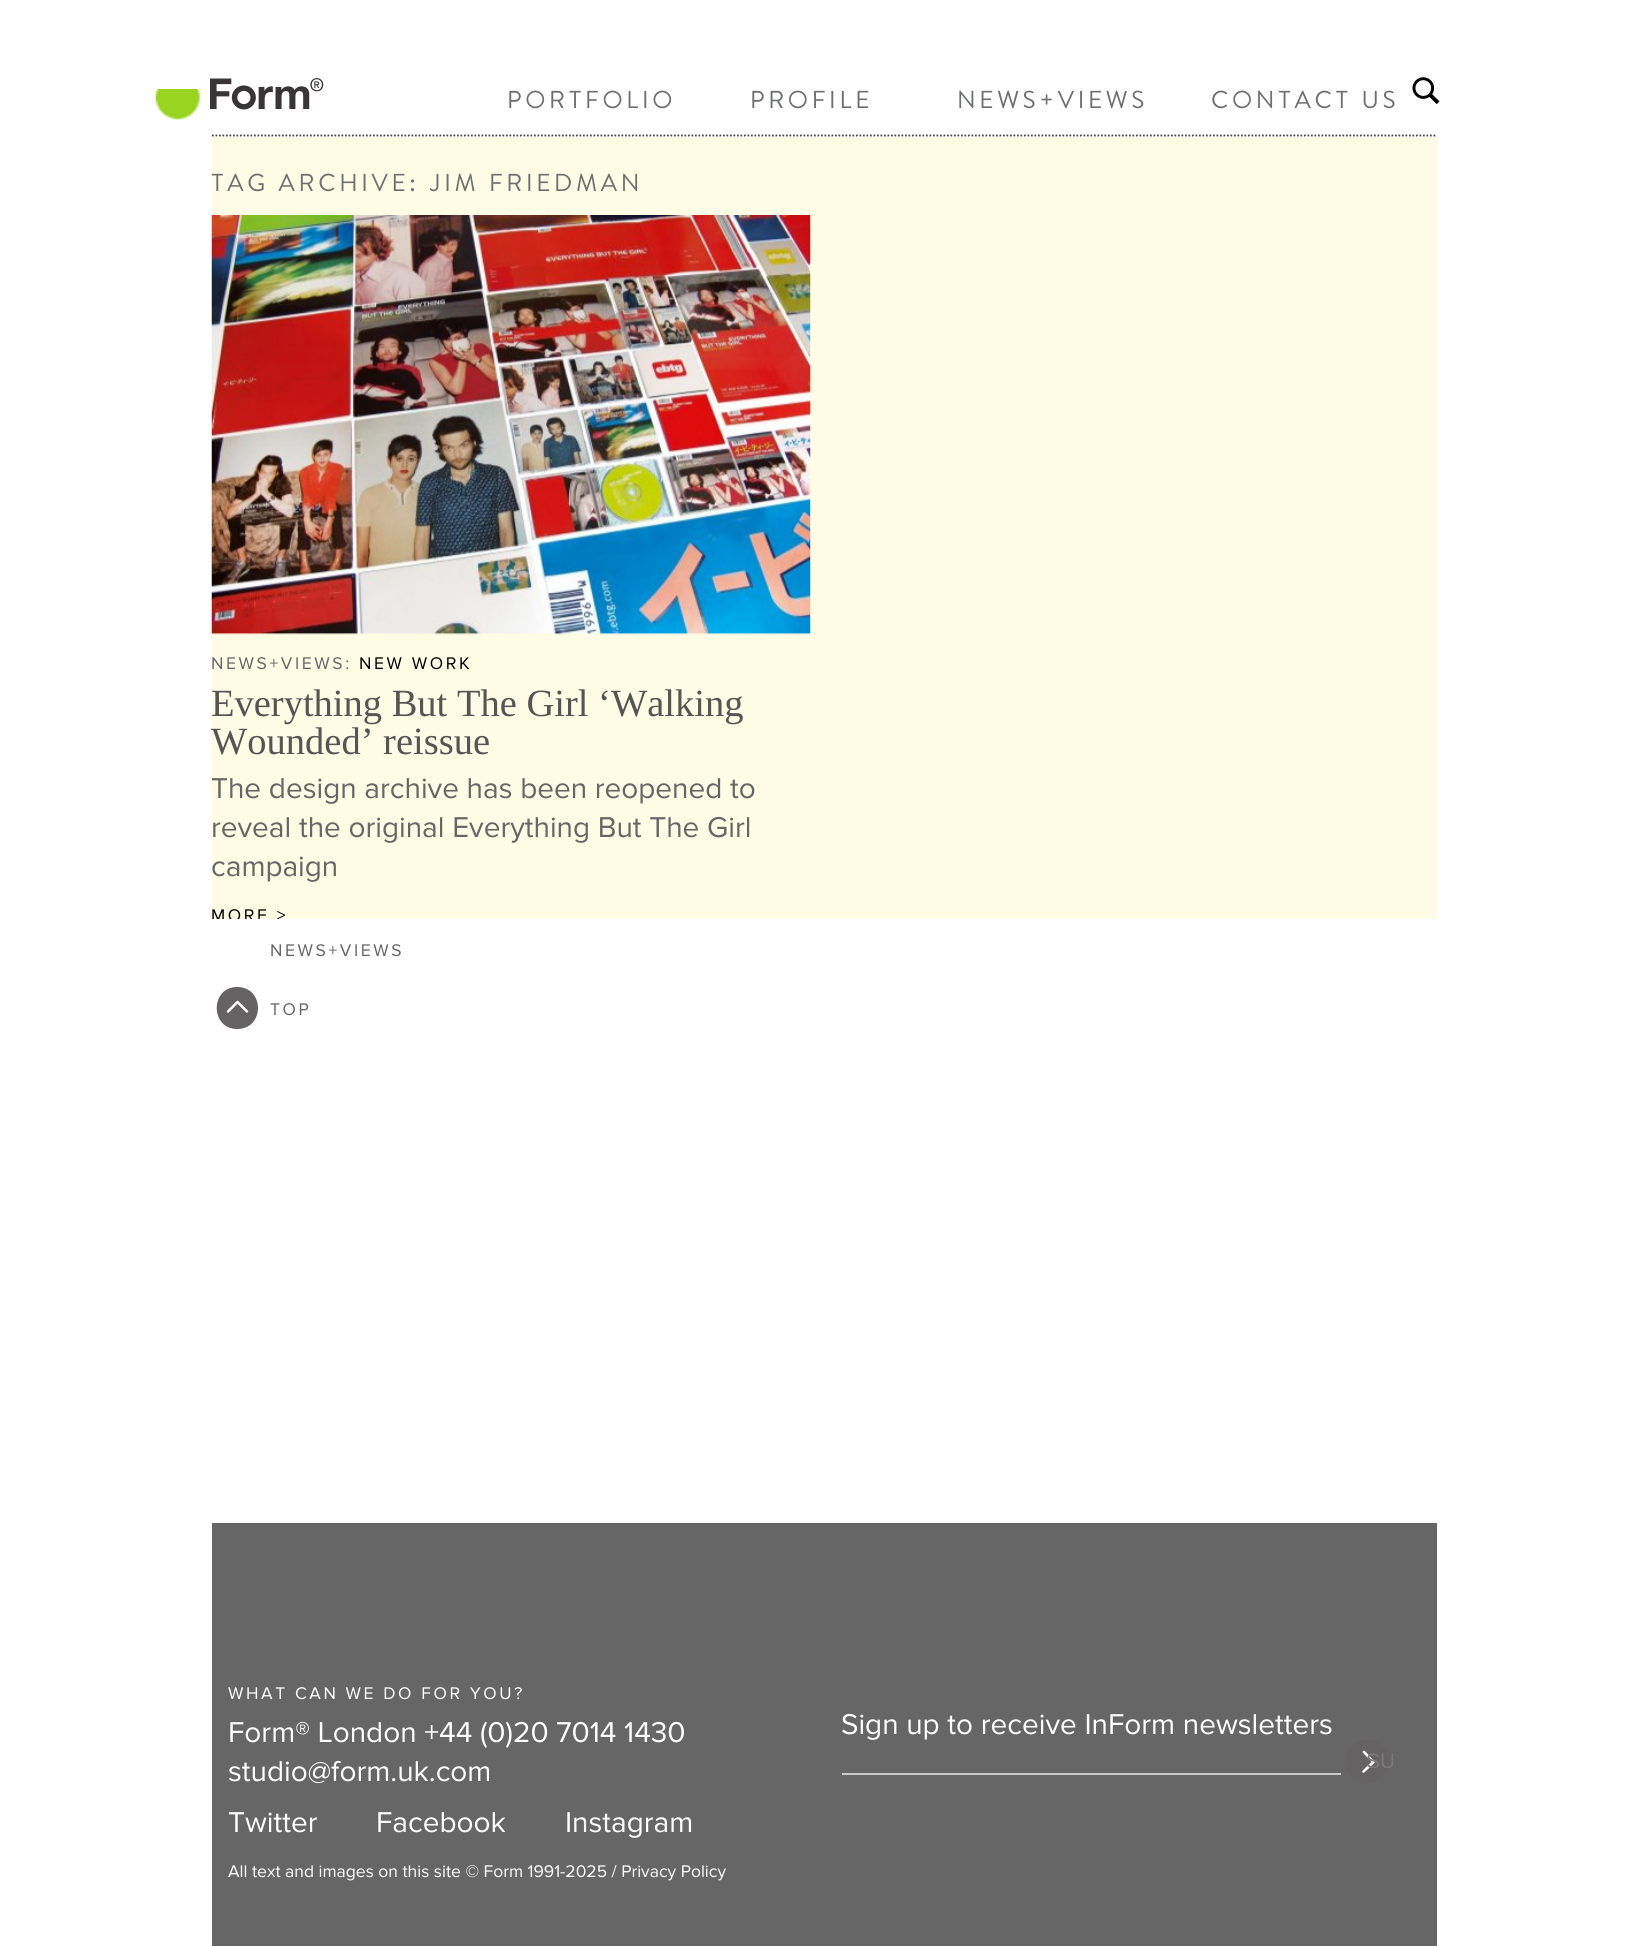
#include <cairo.h>
#include <math.h>
#include <stddef.h>

static cairo_t *ctx;

static void use_color(int r, int g, int b) {
    cairo_set_source_rgb(ctx, r / 255.0, g / 255.0, b / 255.0);
}

static void spaced_text(double x, double y, const char *s, double letter, double word) {
    cairo_move_to(ctx, x, y);
    while (*s) {
        char ch[5] = {0};
        int n = 0;
        do ch[n++] = *s++; while ((*s & 0xC0) == 0x80);
        cairo_show_text(ctx, ch);
        cairo_rel_move_to(ctx, letter + word * (*ch == ' '), 0);
    }
}

static void round_rect(double x, double y, double w, double h, double r) {
    cairo_new_sub_path(ctx);
    cairo_arc(ctx, x + w - r, y + h - r, r, 0, M_PI / 2);
    cairo_arc(ctx, x + r, y + h - r, r, M_PI / 2, M_PI);
    cairo_arc(ctx, x + r, y + r, r, M_PI, 1.5 * M_PI);
    cairo_arc(ctx, x + w - r, y + r, r, 1.5 * M_PI, 2 * M_PI);
    cairo_close_path(ctx);
}

static void picture(const char *path, double x, double y, double w, double h) {
    cairo_surface_t *image = cairo_image_surface_create_from_png(path);
    cairo_save(ctx);
    cairo_set_source_surface(ctx, image, x, y);
    cairo_rectangle(ctx, x, y, w, h);
    cairo_fill(ctx);
    cairo_restore(ctx);
    cairo_surface_destroy(image);
}

int main(void) {
    cairo_surface_t *surface = cairo_image_surface_create(CAIRO_FORMAT_RGB24, 1646, 1946);
    ctx = cairo_create(surface);
    cairo_font_options_t *options = cairo_font_options_create();
    cairo_font_options_set_hint_metrics(options, CAIRO_HINT_METRICS_OFF);
    cairo_font_options_set_hint_style(options, CAIRO_HINT_STYLE_NONE);
    cairo_set_font_options(ctx, options);
    cairo_set_miter_limit(ctx, 4);
    use_color(255, 255, 255);
    cairo_paint(ctx);
    picture("img1.png", 155, 89, 45, 31);
    picture("img2.png", 210, 78, 114, 32);
    cairo_select_font_face(ctx, "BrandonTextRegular", CAIRO_FONT_SLANT_NORMAL, CAIRO_FONT_WEIGHT_NORMAL);
    cairo_set_font_size(ctx, 24.5);
    use_color(110, 111, 113);
    spaced_text(507, 108, "PORTFOLIO", 3.7, 0);
    spaced_text(750, 108, "PROFILE", 3.7, 0);
    spaced_text(957, 108, "NEWS+VIEWS", 3.7, 0);
    spaced_text(1211, 108, "CONTACT US", 3.7, 0);
    picture("img3.png", 1412, 77, 28, 28);
    cairo_new_path(ctx);
    cairo_move_to(ctx, 212, 135.5);
    cairo_line_to(ctx, 1437, 135.5);
    use_color(68, 68, 68);
    cairo_set_line_width(ctx, 1.8);
    cairo_set_dash(ctx, (double[]){1.75, 1.75}, 2, 0);
    cairo_stroke(ctx);
    use_color(254, 252, 229);
    cairo_rectangle(ctx, 212, 137, 1225, 782);
    cairo_fill(ctx);
    use_color(110, 111, 113);
    spaced_text(211, 191, "TAG ARCHIVE: JIM FRIEDMAN", 3.7, 0);
    picture("img4.png", 211, 215, 600, 420);
    cairo_select_font_face(ctx, "Proxima Nova", CAIRO_FONT_SLANT_NORMAL, CAIRO_FONT_WEIGHT_NORMAL);
    cairo_set_font_size(ctx, 17.5);
    use_color(102, 102, 102);
    spaced_text(211, 669, "NEWS+VIEWS:", 2.6, 0);
    use_color(0, 0, 0);
    spaced_text(359, 669, "NEW WORK", 2.6, 0);
    cairo_select_font_face(ctx, "Liberation Serif", CAIRO_FONT_SLANT_NORMAL, CAIRO_FONT_WEIGHT_NORMAL);
    cairo_set_font_size(ctx, 38.5);
    use_color(85, 85, 85);
    cairo_move_to(ctx, 211, 716);
    cairo_show_text(ctx, "Everything But The Girl ‘Walking");
    cairo_move_to(ctx, 211, 754);
    cairo_show_text(ctx, "Wounded’ reissue");
    cairo_select_font_face(ctx, "Proxima Nova", CAIRO_FONT_SLANT_NORMAL, CAIRO_FONT_WEIGHT_NORMAL);
    cairo_set_font_size(ctx, 29.75);
    use_color(102, 102, 102);
    cairo_move_to(ctx, 211, 798);
    cairo_show_text(ctx, "The design archive has been reopened to");
    cairo_move_to(ctx, 211, 837);
    cairo_show_text(ctx, "reveal the original Everything But The Girl");
    cairo_move_to(ctx, 211, 876);
    cairo_show_text(ctx, "campaign");
    cairo_set_font_size(ctx, 17.5);
    use_color(0, 0, 0);
    spaced_text(211, 921, "MORE >", 2.6, 0);
    use_color(255, 255, 255);
    cairo_rectangle(ctx, 212, 919, 66, 3);
    cairo_fill(ctx);
    use_color(102, 102, 102);
    spaced_text(270, 956, "NEWS+VIEWS", 2.6, 0);
    use_color(101, 98, 99);
    cairo_new_path(ctx);
    cairo_move_to(ctx, 237, 1029);
    cairo_curve_to(ctx, 210, 1029, 210, 987, 237, 987);
    cairo_curve_to(ctx, 265, 987, 265, 1029, 237, 1029);
    cairo_fill(ctx);
    cairo_new_path(ctx);
    cairo_move_to(ctx, 228, 1011.5);
    cairo_line_to(ctx, 237.5, 1002);
    cairo_line_to(ctx, 247, 1011.5);
    use_color(255, 255, 255);
    cairo_set_line_width(ctx, 2.5);
    cairo_set_line_cap(ctx, CAIRO_LINE_CAP_ROUND);
    cairo_set_line_join(ctx, CAIRO_LINE_JOIN_ROUND);
    cairo_set_dash(ctx, NULL, 0, 0);
    cairo_stroke(ctx);
    use_color(102, 102, 102);
    spaced_text(270, 1015, "TOP", 2.6, 0);
    cairo_rectangle(ctx, 212, 1523, 1225, 423);
    cairo_fill(ctx);
    use_color(255, 255, 255);
    spaced_text(228, 1699, "WHAT CAN WE DO FOR YOU?", 2.6, 0);
    cairo_set_font_size(ctx, 29.75);
    cairo_move_to(ctx, 228, 1742);
    cairo_show_text(ctx, "Form® London +44 (0)20 7014 1430");
    cairo_move_to(ctx, 228, 1781);
    cairo_show_text(ctx, "studio@form.uk.com");
    cairo_move_to(ctx, 841, 1734);
    cairo_show_text(ctx, "Sign up to receive InForm newsletters");
    use_color(101, 98, 99);
    cairo_new_path(ctx);
    cairo_move_to(ctx, 1367, 1783);
    cairo_curve_to(ctx, 1396, 1783, 1396, 1740, 1367, 1740);
    cairo_curve_to(ctx, 1338, 1740, 1338, 1783, 1367, 1783);
    cairo_fill(ctx);
    cairo_new_path(ctx);
    cairo_move_to(ctx, 1363.5, 1771.5);
    cairo_line_to(ctx, 1373.5, 1762);
    cairo_line_to(ctx, 1364, 1752);
    use_color(255, 255, 255);
    cairo_set_line_width(ctx, 2.6);
    cairo_stroke(ctx);
    cairo_save(ctx);
    round_rect(1341, 1734, 52, 51, 5);
    cairo_clip(ctx);
    cairo_select_font_face(ctx, "Liberation Sans", CAIRO_FONT_SLANT_NORMAL, CAIRO_FONT_WEIGHT_NORMAL);
    cairo_set_font_size(ctx, 21);
    use_color(123, 121, 122);
    cairo_move_to(ctx, 1366, 1768);
    cairo_show_text(ctx, "SU");
    cairo_restore(ctx);
    use_color(204, 204, 204);
    cairo_rectangle(ctx, 842, 1773, 499, 2);
    cairo_fill(ctx);
    use_color(255, 255, 255);
    cairo_move_to(ctx, 228, 1832);
    cairo_show_text(ctx, "Twitter");
    cairo_move_to(ctx, 376, 1832);
    cairo_show_text(ctx, "Facebook");
    cairo_move_to(ctx, 565, 1832);
    cairo_show_text(ctx, "Instagram");
    cairo_set_font_size(ctx, 17.5);
    cairo_move_to(ctx, 228, 1877);
    cairo_show_text(ctx, "All text and images on this site © Form 1991-2025 / Privacy Policy");
    cairo_surface_write_to_png(surface, "result.png");
    cairo_font_options_destroy(options);
    cairo_destroy(ctx);
    cairo_surface_destroy(surface);
    return 0;
}
